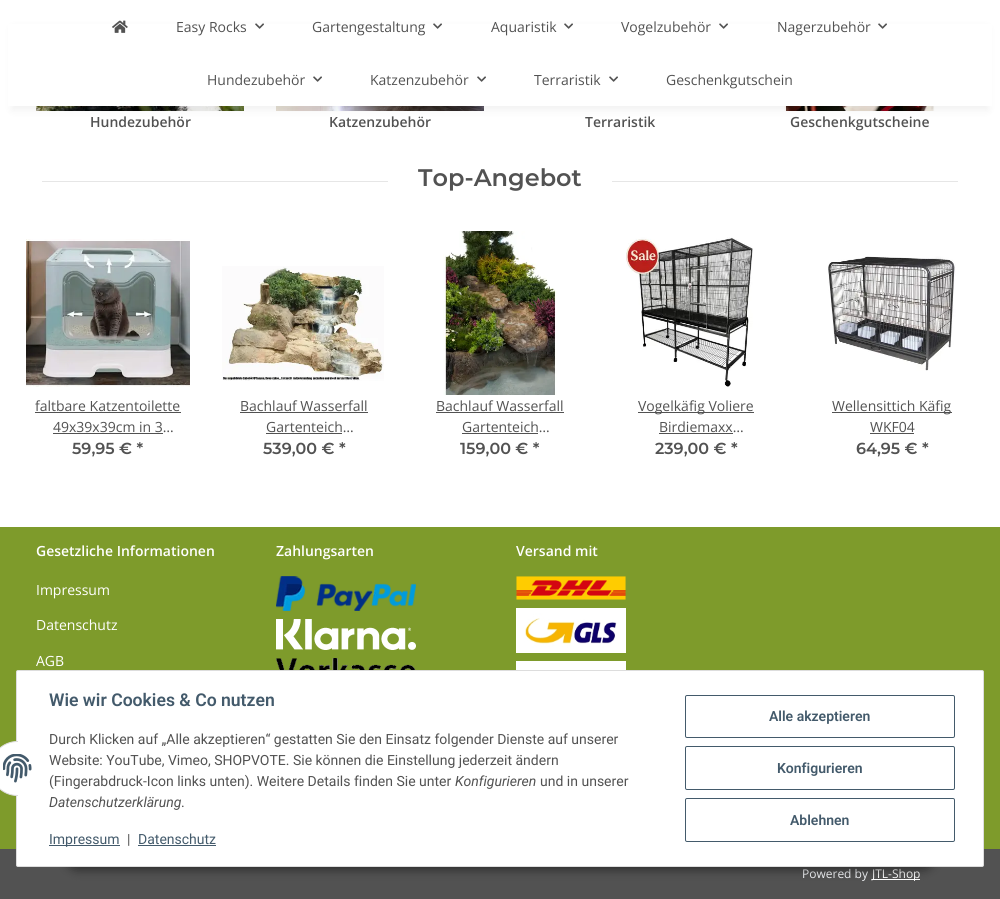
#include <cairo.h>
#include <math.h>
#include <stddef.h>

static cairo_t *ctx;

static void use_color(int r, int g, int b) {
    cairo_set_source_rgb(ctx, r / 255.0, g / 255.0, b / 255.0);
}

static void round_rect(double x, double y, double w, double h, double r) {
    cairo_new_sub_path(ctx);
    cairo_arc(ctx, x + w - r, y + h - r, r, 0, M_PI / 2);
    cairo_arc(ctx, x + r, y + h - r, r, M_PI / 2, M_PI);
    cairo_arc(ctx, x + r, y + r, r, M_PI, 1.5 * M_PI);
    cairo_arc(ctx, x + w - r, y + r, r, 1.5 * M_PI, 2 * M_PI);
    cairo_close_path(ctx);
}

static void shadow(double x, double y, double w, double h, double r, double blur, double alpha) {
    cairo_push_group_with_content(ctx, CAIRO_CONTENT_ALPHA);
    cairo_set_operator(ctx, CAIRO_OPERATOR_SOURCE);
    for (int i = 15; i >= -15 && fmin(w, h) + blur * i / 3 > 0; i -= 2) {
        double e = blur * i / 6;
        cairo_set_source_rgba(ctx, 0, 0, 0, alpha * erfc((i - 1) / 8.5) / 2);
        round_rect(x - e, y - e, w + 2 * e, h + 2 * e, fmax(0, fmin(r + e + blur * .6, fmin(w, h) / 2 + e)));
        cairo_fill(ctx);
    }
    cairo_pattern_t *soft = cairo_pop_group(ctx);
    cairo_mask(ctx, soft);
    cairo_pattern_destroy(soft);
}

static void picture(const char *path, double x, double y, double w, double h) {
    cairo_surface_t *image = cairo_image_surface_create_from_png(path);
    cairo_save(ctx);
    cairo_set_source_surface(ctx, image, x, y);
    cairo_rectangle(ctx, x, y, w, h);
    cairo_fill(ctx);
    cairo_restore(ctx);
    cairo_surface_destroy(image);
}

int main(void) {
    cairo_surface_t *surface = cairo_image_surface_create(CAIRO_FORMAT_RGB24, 1000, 899);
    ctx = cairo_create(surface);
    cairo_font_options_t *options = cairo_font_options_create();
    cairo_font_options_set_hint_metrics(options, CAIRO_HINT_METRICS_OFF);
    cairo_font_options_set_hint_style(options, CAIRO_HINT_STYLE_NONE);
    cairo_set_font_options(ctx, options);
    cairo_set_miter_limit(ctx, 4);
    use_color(255, 255, 255);
    cairo_paint(ctx);
    picture("img3.png", 36, 106, 208, 5);
    picture("img4.png", 276, 106, 208, 5);
    picture("img5.png", 784, 106, 151, 5);
    use_color(0, 0, 0);
    shadow(12, 28, 976, 82, 0, 4.5, 0.06);
    use_color(255, 255, 255);
    cairo_rectangle(ctx, 8, 24, 984, 82);
    cairo_fill(ctx);
    picture("img1.png", 112, 20, 16, 13);
    cairo_select_font_face(ctx, "Open Sans", CAIRO_FONT_SLANT_NORMAL, CAIRO_FONT_WEIGHT_NORMAL);
    cairo_set_font_size(ctx, 14);
    use_color(82, 82, 82);
    cairo_move_to(ctx, 176, 32);
    cairo_show_text(ctx, "Easy Rocks");
    picture("img2.png", 255, 23, 9, 6);
    cairo_move_to(ctx, 312, 32);
    cairo_show_text(ctx, "Gartengestaltung");
    picture("img2.png", 433, 23, 9, 6);
    cairo_move_to(ctx, 491, 32);
    cairo_show_text(ctx, "Aquaristik");
    picture("img2.png", 564, 23, 9, 6);
    cairo_move_to(ctx, 621, 32);
    cairo_show_text(ctx, "Vogelzubehör");
    picture("img2.png", 719, 23, 9, 6);
    cairo_move_to(ctx, 777, 32);
    cairo_show_text(ctx, "Nagerzubehör");
    picture("img2.png", 878, 23, 9, 6);
    cairo_move_to(ctx, 207, 85);
    cairo_show_text(ctx, "Hundezubehör");
    picture("img2.png", 313, 76, 9, 6);
    cairo_move_to(ctx, 370, 85);
    cairo_show_text(ctx, "Katzenzubehör");
    picture("img2.png", 477, 76, 9, 6);
    cairo_move_to(ctx, 534, 85);
    cairo_show_text(ctx, "Terraristik");
    picture("img2.png", 609, 76, 9, 6);
    cairo_move_to(ctx, 666, 85);
    cairo_show_text(ctx, "Geschenkgutschein");
    cairo_select_font_face(ctx, "Open Sans SemiBold", CAIRO_FONT_SLANT_NORMAL, CAIRO_FONT_WEIGHT_NORMAL);
    cairo_move_to(ctx, 90, 127);
    cairo_show_text(ctx, "Hundezubehör");
    cairo_move_to(ctx, 329, 127);
    cairo_show_text(ctx, "Katzenzubehör");
    cairo_move_to(ctx, 585, 127);
    cairo_show_text(ctx, "Terraristik");
    cairo_move_to(ctx, 790, 127);
    cairo_show_text(ctx, "Geschenkgutscheine");
    use_color(230, 230, 230);
    cairo_rectangle(ctx, 42, 181, 346, 1);
    cairo_fill(ctx);
    cairo_select_font_face(ctx, "Montserrat SemiBold", CAIRO_FONT_SLANT_NORMAL, CAIRO_FONT_WEIGHT_NORMAL);
    cairo_set_font_size(ctx, 24);
    use_color(82, 82, 82);
    cairo_move_to(ctx, 418, 186);
    cairo_show_text(ctx, "Top-Angebot");
    use_color(230, 230, 230);
    cairo_rectangle(ctx, 612, 181, 346, 1);
    cairo_fill(ctx);
    picture("img6.png", 26, 239, 164, 148);
    cairo_select_font_face(ctx, "Open Sans", CAIRO_FONT_SLANT_NORMAL, CAIRO_FONT_WEIGHT_NORMAL);
    cairo_set_font_size(ctx, 14);
    use_color(82, 82, 82);
    cairo_move_to(ctx, 35, 411);
    cairo_show_text(ctx, "faltbare Katzentoilette");
    cairo_rectangle(ctx, 35, 412, 146, 1);
    cairo_fill(ctx);
    cairo_move_to(ctx, 53, 432);
    cairo_show_text(ctx, "49x39x39cm in 3…");
    cairo_rectangle(ctx, 53, 433, 110, 1);
    cairo_fill(ctx);
    cairo_select_font_face(ctx, "Montserrat SemiBold", CAIRO_FONT_SLANT_NORMAL, CAIRO_FONT_WEIGHT_NORMAL);
    cairo_set_font_size(ctx, 16);
    cairo_move_to(ctx, 72, 454);
    cairo_show_text(ctx, "59,95 € *");
    picture("img7.png", 222, 266, 162, 115);
    cairo_select_font_face(ctx, "Open Sans", CAIRO_FONT_SLANT_NORMAL, CAIRO_FONT_WEIGHT_NORMAL);
    cairo_set_font_size(ctx, 14);
    cairo_move_to(ctx, 240, 411);
    cairo_show_text(ctx, "Bachlauf Wasserfall");
    cairo_rectangle(ctx, 240, 412, 128, 1);
    cairo_fill(ctx);
    cairo_move_to(ctx, 266, 432);
    cairo_show_text(ctx, "Gartenteich…");
    cairo_rectangle(ctx, 266, 433, 76, 1);
    cairo_fill(ctx);
    cairo_select_font_face(ctx, "Montserrat SemiBold", CAIRO_FONT_SLANT_NORMAL, CAIRO_FONT_WEIGHT_NORMAL);
    cairo_set_font_size(ctx, 16);
    cairo_move_to(ctx, 263, 454);
    cairo_show_text(ctx, "539,00 € *");
    picture("img8.png", 443, 231, 114, 164);
    cairo_select_font_face(ctx, "Open Sans", CAIRO_FONT_SLANT_NORMAL, CAIRO_FONT_WEIGHT_NORMAL);
    cairo_set_font_size(ctx, 14);
    cairo_move_to(ctx, 436, 411);
    cairo_show_text(ctx, "Bachlauf Wasserfall");
    cairo_rectangle(ctx, 436, 412, 128, 1);
    cairo_fill(ctx);
    cairo_move_to(ctx, 462, 432);
    cairo_show_text(ctx, "Gartenteich…");
    cairo_rectangle(ctx, 462, 433, 76, 1);
    cairo_fill(ctx);
    cairo_select_font_face(ctx, "Montserrat SemiBold", CAIRO_FONT_SLANT_NORMAL, CAIRO_FONT_WEIGHT_NORMAL);
    cairo_set_font_size(ctx, 16);
    cairo_move_to(ctx, 460, 454);
    cairo_show_text(ctx, "159,00 € *");
    picture("img9.png", 626, 237, 127, 150);
    cairo_rectangle(ctx, 638, 412, 116, 1);
    cairo_fill(ctx);
    cairo_select_font_face(ctx, "Open Sans", CAIRO_FONT_SLANT_NORMAL, CAIRO_FONT_WEIGHT_NORMAL);
    cairo_set_font_size(ctx, 14);
    cairo_move_to(ctx, 638, 411);
    cairo_show_text(ctx, "Vogelkäfig Voliere");
    cairo_move_to(ctx, 659, 432);
    cairo_show_text(ctx, "Birdiemaxx…");
    cairo_rectangle(ctx, 659, 433, 74, 1);
    cairo_fill(ctx);
    cairo_select_font_face(ctx, "Montserrat SemiBold", CAIRO_FONT_SLANT_NORMAL, CAIRO_FONT_WEIGHT_NORMAL);
    cairo_set_font_size(ctx, 16);
    cairo_move_to(ctx, 655, 454);
    cairo_show_text(ctx, "239,00 € *");
    picture("img10.png", 828, 256, 128, 115);
    cairo_rectangle(ctx, 832, 412, 120, 1);
    cairo_fill(ctx);
    cairo_select_font_face(ctx, "Open Sans", CAIRO_FONT_SLANT_NORMAL, CAIRO_FONT_WEIGHT_NORMAL);
    cairo_set_font_size(ctx, 14);
    cairo_move_to(ctx, 832, 411);
    cairo_show_text(ctx, "Wellensittich Käfig");
    cairo_move_to(ctx, 870, 432);
    cairo_show_text(ctx, "WKF04");
    cairo_rectangle(ctx, 870, 433, 44, 1);
    cairo_fill(ctx);
    cairo_select_font_face(ctx, "Montserrat SemiBold", CAIRO_FONT_SLANT_NORMAL, CAIRO_FONT_WEIGHT_NORMAL);
    cairo_set_font_size(ctx, 16);
    cairo_move_to(ctx, 856, 454);
    cairo_show_text(ctx, "64,95 € *");
    use_color(126, 155, 43);
    cairo_rectangle(ctx, 0, 527, 1000, 322);
    cairo_fill(ctx);
    cairo_select_font_face(ctx, "Open Sans SemiBold", CAIRO_FONT_SLANT_NORMAL, CAIRO_FONT_WEIGHT_NORMAL);
    cairo_set_font_size(ctx, 14);
    use_color(255, 255, 255);
    cairo_move_to(ctx, 36, 556);
    cairo_show_text(ctx, "Gesetzliche Informationen");
    cairo_select_font_face(ctx, "Open Sans", CAIRO_FONT_SLANT_NORMAL, CAIRO_FONT_WEIGHT_NORMAL);
    cairo_move_to(ctx, 36, 595);
    cairo_show_text(ctx, "Impressum");
    cairo_move_to(ctx, 36, 630);
    cairo_show_text(ctx, "Datenschutz");
    cairo_move_to(ctx, 36, 666);
    cairo_show_text(ctx, "AGB");
    cairo_select_font_face(ctx, "Open Sans SemiBold", CAIRO_FONT_SLANT_NORMAL, CAIRO_FONT_WEIGHT_NORMAL);
    cairo_move_to(ctx, 276, 556);
    cairo_show_text(ctx, "Zahlungsarten");
    picture("img11.png", 276, 576, 140, 35);
    picture("img12.png", 276, 619, 140, 31);
    picture("img13.png", 276, 658, 140, 12);
    cairo_move_to(ctx, 516, 556);
    cairo_show_text(ctx, "Versand mit");
    picture("img14.png", 516, 576, 110, 24);
    picture("img15.png", 516, 608, 110, 45);
    picture("img16.png", 516, 661, 110, 9);
    use_color(82, 82, 82);
    cairo_rectangle(ctx, 0, 849, 1000, 50);
    cairo_fill(ctx);
    cairo_select_font_face(ctx, "Open Sans", CAIRO_FONT_SLANT_NORMAL, CAIRO_FONT_WEIGHT_NORMAL);
    cairo_set_font_size(ctx, 12);
    use_color(245, 247, 250);
    cairo_move_to(ctx, 802, 878);
    cairo_show_text(ctx, "Powered by");
    use_color(255, 255, 255);
    cairo_rectangle(ctx, 872, 879, 48, 1);
    cairo_fill(ctx);
    cairo_move_to(ctx, 872, 878);
    cairo_show_text(ctx, "JTL-Shop");
    use_color(0, 0, 0);
    shadow(65, 838, 870, 32, 16, 5, 0.45);
    use_color(255, 255, 255);
    round_rect(16.5, 670.5, 967, 196, 1.5);
    cairo_fill_preserve(ctx);
    use_color(221, 221, 221);
    cairo_set_line_width(ctx, 1);
    cairo_stroke(ctx);
    use_color(255, 255, 255);
    cairo_arc(ctx, 17.5, 768.5, 27, 0, 2 * M_PI);
    cairo_fill_preserve(ctx);
    use_color(221, 221, 221);
    cairo_stroke(ctx);
    use_color(255, 255, 255);
    cairo_rectangle(ctx, 18, 741, 27, 55);
    cairo_fill(ctx);
    picture("img17.png", 3, 754, 29, 29);
    cairo_select_font_face(ctx, "Roboto SemiBold", CAIRO_FONT_SLANT_NORMAL, CAIRO_FONT_WEIGHT_NORMAL);
    cairo_set_font_size(ctx, 17.6);
    use_color(67, 90, 107);
    cairo_move_to(ctx, 49, 706);
    cairo_show_text(ctx, "Wie wir Cookies & Co nutzen");
    cairo_select_font_face(ctx, "Roboto", CAIRO_FONT_SLANT_NORMAL, CAIRO_FONT_WEIGHT_NORMAL);
    cairo_set_font_size(ctx, 14);
    use_color(82, 82, 82);
    cairo_move_to(ctx, 49, 744);
    cairo_show_text(ctx, "Durch Klicken auf „Alle akzeptieren“ gestatten Sie den Einsatz folgender Dienste auf unserer");
    cairo_move_to(ctx, 49, 765);
    cairo_show_text(ctx, "Website: YouTube, Vimeo, SHOPVOTE. Sie können die Einstellung jederzeit ändern");
    cairo_move_to(ctx, 49, 786);
    cairo_show_text(ctx, "(Fingerabdruck-Icon links unten). Weitere Details finden Sie unter");
    cairo_select_font_face(ctx, "Roboto", CAIRO_FONT_SLANT_ITALIC, CAIRO_FONT_WEIGHT_NORMAL);
    cairo_move_to(ctx, 455, 786);
    cairo_show_text(ctx, "Konfigurieren");
    cairo_select_font_face(ctx, "Roboto", CAIRO_FONT_SLANT_NORMAL, CAIRO_FONT_WEIGHT_NORMAL);
    cairo_move_to(ctx, 540, 786);
    cairo_show_text(ctx, "und in unserer");
    cairo_select_font_face(ctx, "Roboto", CAIRO_FONT_SLANT_ITALIC, CAIRO_FONT_WEIGHT_NORMAL);
    cairo_move_to(ctx, 49, 807);
    cairo_show_text(ctx, "Datenschutzerklärung");
    cairo_select_font_face(ctx, "Roboto", CAIRO_FONT_SLANT_NORMAL, CAIRO_FONT_WEIGHT_NORMAL);
    cairo_move_to(ctx, 181, 807);
    cairo_show_text(ctx, ".");
    use_color(67, 90, 107);
    cairo_rectangle(ctx, 49, 845, 71, 1);
    cairo_fill(ctx);
    cairo_move_to(ctx, 49, 844);
    cairo_show_text(ctx, "Impressum");
    use_color(82, 82, 82);
    cairo_move_to(ctx, 127, 844);
    cairo_show_text(ctx, "|");
    use_color(67, 90, 107);
    cairo_move_to(ctx, 138, 844);
    cairo_show_text(ctx, "Datenschutz");
    cairo_rectangle(ctx, 138, 845, 78, 1);
    cairo_fill(ctx);
    round_rect(685.5, 695.5, 269, 42, 1.5);
    cairo_stroke(ctx);
    cairo_select_font_face(ctx, "Roboto SemiBold", CAIRO_FONT_SLANT_NORMAL, CAIRO_FONT_WEIGHT_NORMAL);
    cairo_move_to(ctx, 769, 721);
    cairo_show_text(ctx, "Alle akzeptieren");
    round_rect(685.5, 746.5, 269, 43, 1.5);
    cairo_stroke(ctx);
    cairo_move_to(ctx, 777, 773);
    cairo_show_text(ctx, "Konfigurieren");
    round_rect(685.5, 798.5, 269, 43, 1.5);
    cairo_stroke(ctx);
    cairo_move_to(ctx, 790, 825);
    cairo_show_text(ctx, "Ablehnen");
    cairo_surface_write_to_png(surface, "result.png");
    cairo_font_options_destroy(options);
    cairo_destroy(ctx);
    cairo_surface_destroy(surface);
    return 0;
}
